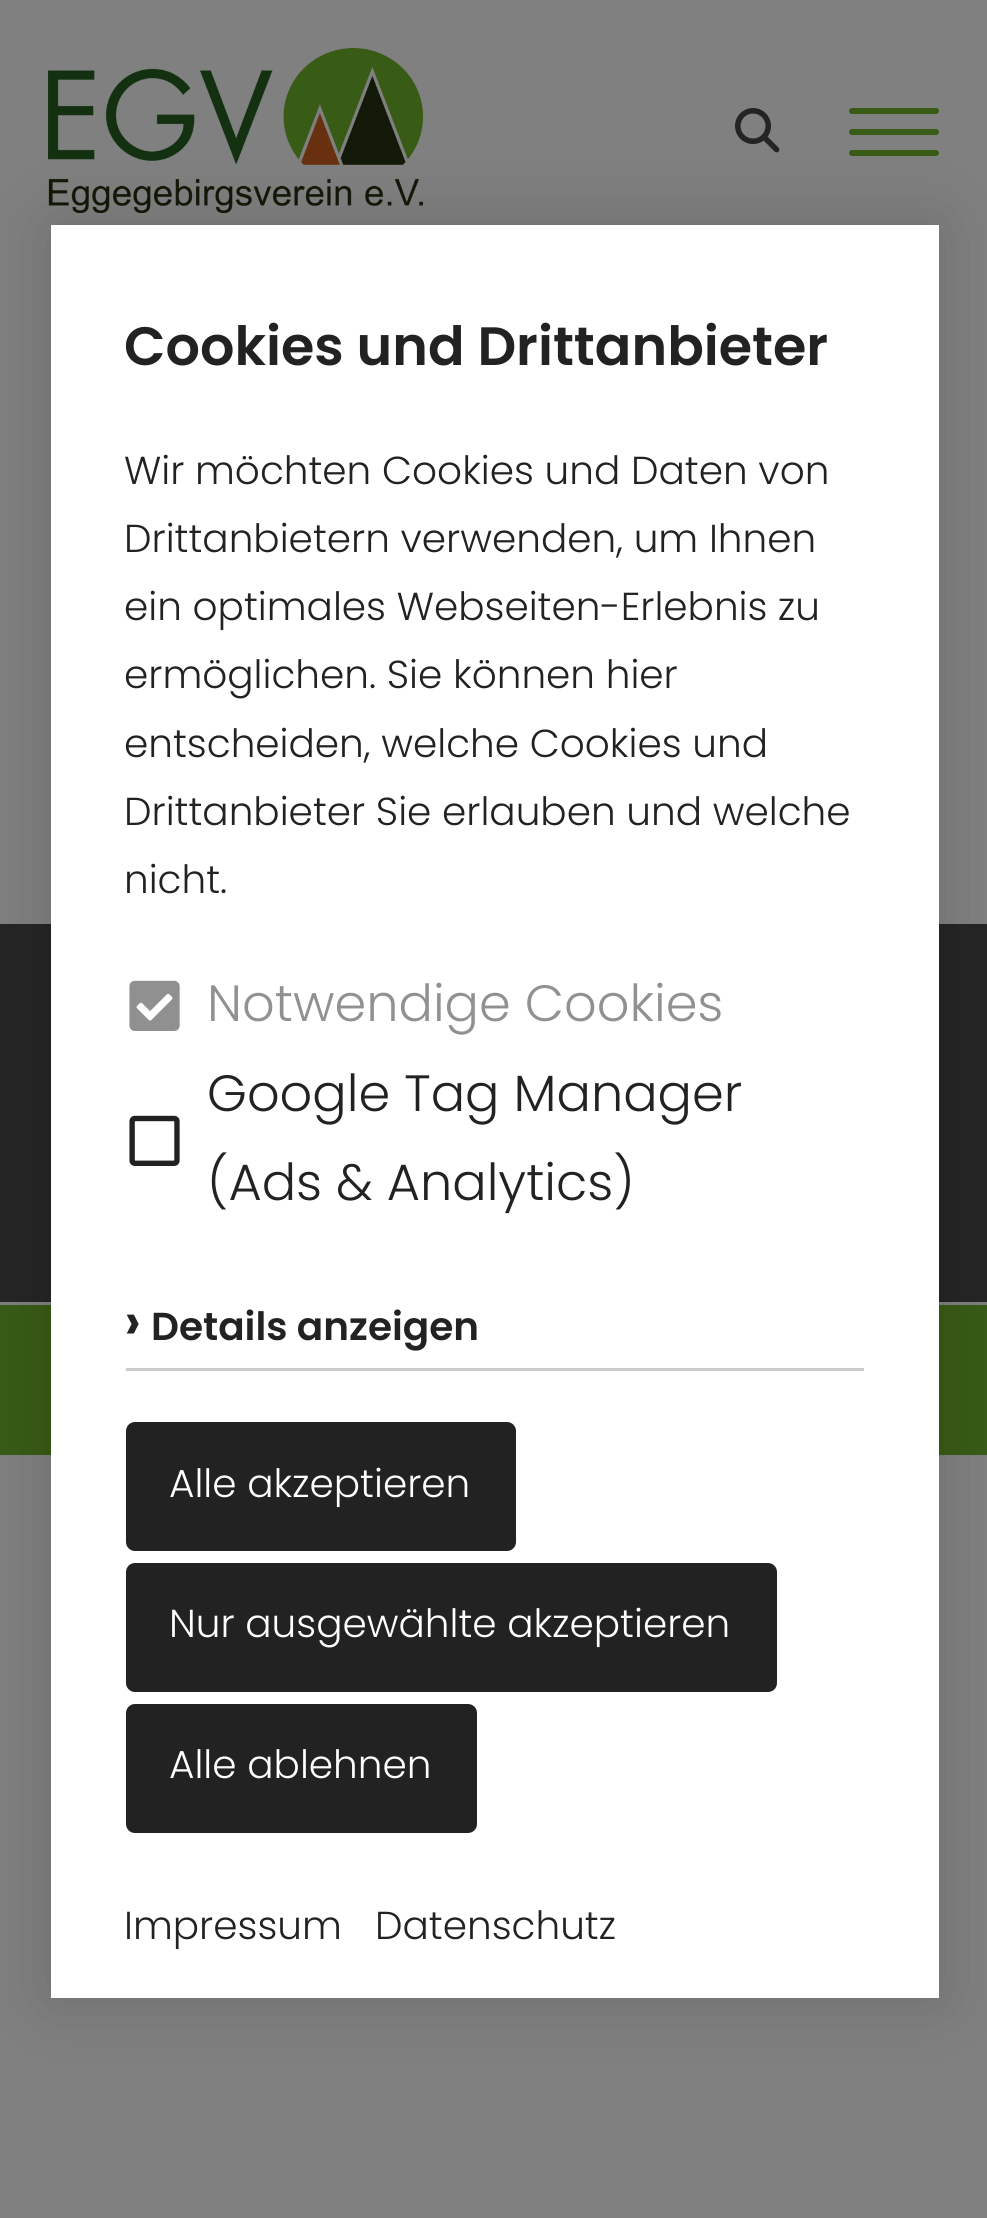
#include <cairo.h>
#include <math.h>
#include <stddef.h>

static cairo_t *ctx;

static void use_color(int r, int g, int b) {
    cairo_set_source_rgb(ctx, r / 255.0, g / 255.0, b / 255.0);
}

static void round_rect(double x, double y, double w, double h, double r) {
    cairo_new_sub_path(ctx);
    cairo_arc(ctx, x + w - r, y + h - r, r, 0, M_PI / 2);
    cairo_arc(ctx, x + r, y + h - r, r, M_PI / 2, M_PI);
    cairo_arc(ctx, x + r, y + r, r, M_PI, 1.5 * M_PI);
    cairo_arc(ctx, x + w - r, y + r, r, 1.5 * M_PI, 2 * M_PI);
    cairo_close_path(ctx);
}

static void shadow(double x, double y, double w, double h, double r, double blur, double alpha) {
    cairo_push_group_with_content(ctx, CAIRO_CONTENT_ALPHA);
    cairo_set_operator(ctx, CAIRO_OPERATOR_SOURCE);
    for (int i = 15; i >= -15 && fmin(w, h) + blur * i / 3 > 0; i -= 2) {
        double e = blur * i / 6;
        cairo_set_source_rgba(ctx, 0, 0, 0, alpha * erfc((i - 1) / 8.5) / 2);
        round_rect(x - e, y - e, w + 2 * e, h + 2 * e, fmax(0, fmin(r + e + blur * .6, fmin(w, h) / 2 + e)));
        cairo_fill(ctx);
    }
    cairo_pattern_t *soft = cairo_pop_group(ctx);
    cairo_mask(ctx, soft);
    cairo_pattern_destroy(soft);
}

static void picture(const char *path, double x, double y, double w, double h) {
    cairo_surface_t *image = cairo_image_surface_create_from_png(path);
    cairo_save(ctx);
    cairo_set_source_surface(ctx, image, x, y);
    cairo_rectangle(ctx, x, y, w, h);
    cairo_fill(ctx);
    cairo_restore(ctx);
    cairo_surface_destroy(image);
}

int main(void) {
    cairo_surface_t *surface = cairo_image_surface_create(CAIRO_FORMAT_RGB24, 987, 2218);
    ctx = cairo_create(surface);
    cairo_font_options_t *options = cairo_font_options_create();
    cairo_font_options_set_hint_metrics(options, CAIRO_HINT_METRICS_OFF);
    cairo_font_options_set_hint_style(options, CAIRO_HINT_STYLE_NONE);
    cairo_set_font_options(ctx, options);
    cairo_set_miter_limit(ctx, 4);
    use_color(128, 128, 128);
    cairo_paint(ctx);
    picture("img1.png", 48, 48, 375, 165);
    picture("img2.png", 735, 108, 45, 45);
    use_color(56, 91, 22);
    round_rect(849, 129, 90, 6, 3);
    cairo_fill(ctx);
    round_rect(849, 108, 90, 6, 3);
    cairo_fill(ctx);
    round_rect(849, 150, 90, 6, 3);
    cairo_fill(ctx);
    use_color(37, 37, 37);
    cairo_rectangle(ctx, 0, 924, 987, 378);
    cairo_fill(ctx);
    use_color(56, 91, 22);
    cairo_rectangle(ctx, 0, 1305, 51, 150);
    cairo_fill(ctx);
    cairo_rectangle(ctx, 939, 1305, 48, 150);
    cairo_fill(ctx);
    use_color(0, 0, 0);
    shadow(51, 225, 888, 1773, 0, 37.5, 0.15);
    use_color(255, 255, 255);
    cairo_rectangle(ctx, 51, 225, 888, 1773);
    cairo_fill(ctx);
    cairo_select_font_face(ctx, "Poppins SemiBold", CAIRO_FONT_SLANT_NORMAL, CAIRO_FONT_WEIGHT_NORMAL);
    cairo_set_font_size(ctx, 54);
    use_color(34, 34, 34);
    cairo_move_to(ctx, 124, 365);
    cairo_show_text(ctx, "Cookies und Drittanbieter");
    cairo_select_font_face(ctx, "Poppins Light", CAIRO_FONT_SLANT_NORMAL, CAIRO_FONT_WEIGHT_NORMAL);
    cairo_set_font_size(ctx, 39);
    cairo_move_to(ctx, 124, 484);
    cairo_show_text(ctx, "Wir möchten Cookies und Daten von");
    cairo_move_to(ctx, 124, 552);
    cairo_show_text(ctx, "Drittanbietern verwenden, um Ihnen");
    cairo_move_to(ctx, 124, 620);
    cairo_show_text(ctx, "ein optimales Webseiten-Erlebnis zu");
    cairo_move_to(ctx, 124, 688);
    cairo_show_text(ctx, "ermöglichen. Sie können hier");
    cairo_move_to(ctx, 124, 757);
    cairo_show_text(ctx, "entscheiden, welche Cookies und");
    cairo_move_to(ctx, 124, 825);
    cairo_show_text(ctx, "Drittanbieter Sie erlauben und welche");
    cairo_move_to(ctx, 124, 893);
    cairo_show_text(ctx, "nicht.");
    picture("img3.png", 129, 980, 51, 51);
    cairo_set_font_size(ctx, 51);
    use_color(145, 145, 145);
    cairo_move_to(ctx, 207, 1021);
    cairo_show_text(ctx, "Notwendige Cookies");
    picture("img4.png", 129, 1115, 51, 51);
    use_color(34, 34, 34);
    cairo_move_to(ctx, 207, 1111);
    cairo_show_text(ctx, "Google Tag Manager");
    cairo_move_to(ctx, 207, 1200);
    cairo_show_text(ctx, "(Ads & Analytics)");
    cairo_select_font_face(ctx, "Poppins SemiBold", CAIRO_FONT_SLANT_NORMAL, CAIRO_FONT_WEIGHT_NORMAL);
    cairo_set_font_size(ctx, 54);
    cairo_move_to(ctx, 124, 1340);
    cairo_show_text(ctx, "›");
    cairo_set_font_size(ctx, 39);
    cairo_move_to(ctx, 151, 1340);
    cairo_show_text(ctx, "Details anzeigen");
    use_color(204, 204, 204);
    cairo_rectangle(ctx, 126, 1368, 738, 3);
    cairo_fill(ctx);
    use_color(34, 34, 34);
    round_rect(126, 1422, 390, 129, 9);
    cairo_fill(ctx);
    cairo_select_font_face(ctx, "Poppins Light", CAIRO_FONT_SLANT_NORMAL, CAIRO_FONT_WEIGHT_NORMAL);
    use_color(255, 255, 255);
    cairo_move_to(ctx, 169, 1497);
    cairo_show_text(ctx, "Alle akzeptieren");
    use_color(34, 34, 34);
    round_rect(126, 1563, 651, 129, 9);
    cairo_fill(ctx);
    use_color(255, 255, 255);
    cairo_move_to(ctx, 169, 1637);
    cairo_show_text(ctx, "Nur ausgewählte akzeptieren");
    use_color(34, 34, 34);
    round_rect(126, 1704, 351, 129, 9);
    cairo_fill(ctx);
    use_color(255, 255, 255);
    cairo_move_to(ctx, 169, 1778);
    cairo_show_text(ctx, "Alle ablehnen");
    use_color(34, 34, 34);
    cairo_move_to(ctx, 124, 1939);
    cairo_show_text(ctx, "Impressum");
    cairo_move_to(ctx, 375, 1939);
    cairo_show_text(ctx, "Datenschutz");
    cairo_surface_write_to_png(surface, "result.png");
    cairo_font_options_destroy(options);
    cairo_destroy(ctx);
    cairo_surface_destroy(surface);
    return 0;
}
